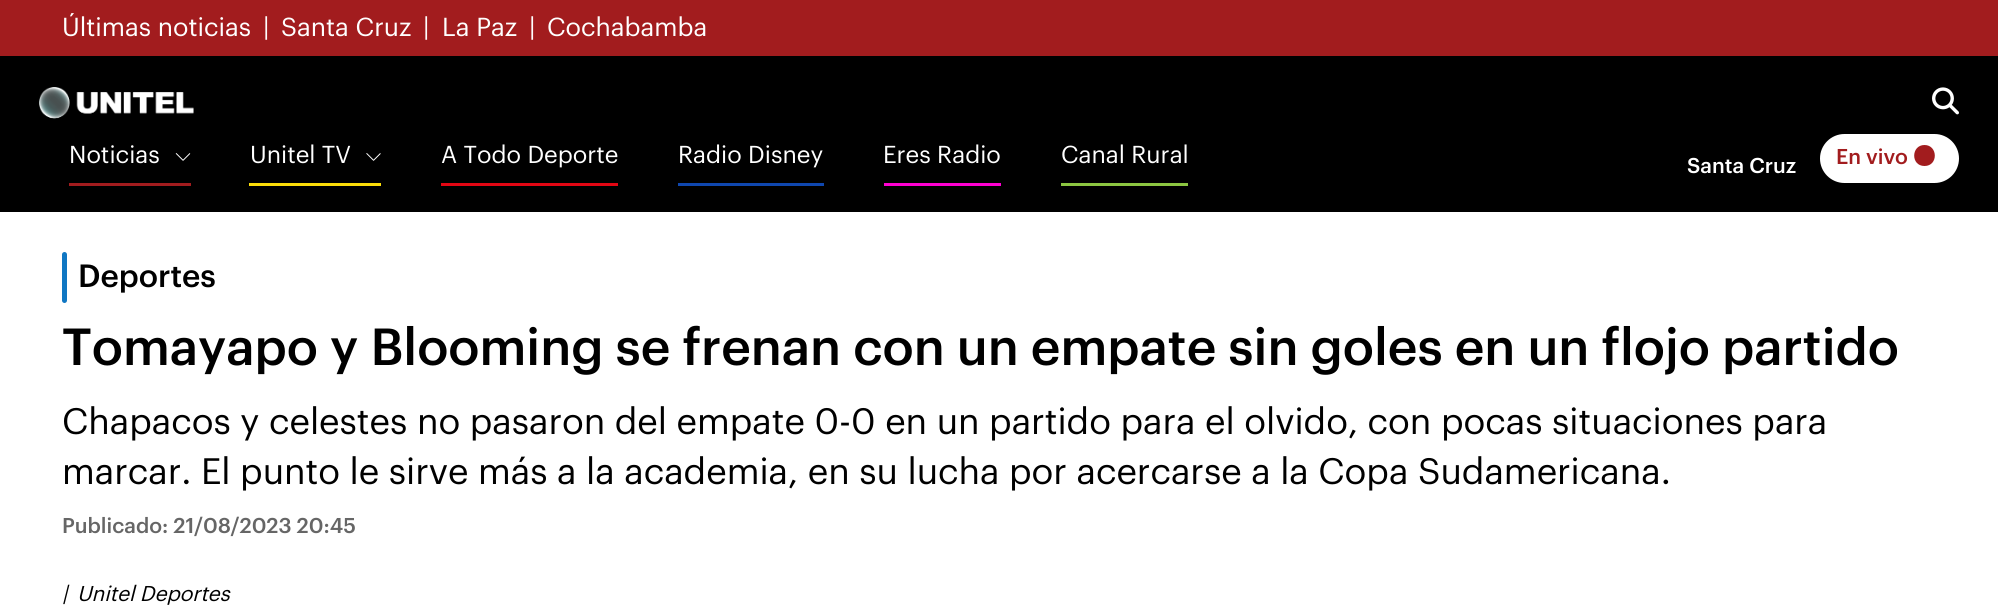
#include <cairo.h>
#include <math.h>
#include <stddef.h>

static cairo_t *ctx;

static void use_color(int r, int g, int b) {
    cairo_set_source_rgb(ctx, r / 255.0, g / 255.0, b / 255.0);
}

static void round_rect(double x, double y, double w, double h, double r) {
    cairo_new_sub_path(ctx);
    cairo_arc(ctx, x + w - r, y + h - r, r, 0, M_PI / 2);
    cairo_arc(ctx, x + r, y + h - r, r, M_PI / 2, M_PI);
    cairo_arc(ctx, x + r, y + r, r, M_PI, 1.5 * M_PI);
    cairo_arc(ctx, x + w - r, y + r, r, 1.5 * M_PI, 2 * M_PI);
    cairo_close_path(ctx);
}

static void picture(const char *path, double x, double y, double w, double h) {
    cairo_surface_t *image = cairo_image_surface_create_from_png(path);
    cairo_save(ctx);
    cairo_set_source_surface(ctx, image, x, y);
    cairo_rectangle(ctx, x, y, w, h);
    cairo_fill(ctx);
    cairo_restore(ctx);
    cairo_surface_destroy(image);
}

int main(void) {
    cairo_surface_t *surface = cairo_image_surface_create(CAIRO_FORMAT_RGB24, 1998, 605);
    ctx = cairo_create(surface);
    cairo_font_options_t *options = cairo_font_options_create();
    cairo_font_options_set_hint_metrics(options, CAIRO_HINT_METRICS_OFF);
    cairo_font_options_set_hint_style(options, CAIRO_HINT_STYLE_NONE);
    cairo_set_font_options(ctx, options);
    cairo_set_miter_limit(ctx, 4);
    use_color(255, 255, 255);
    cairo_paint(ctx);
    use_color(162, 28, 30);
    cairo_rectangle(ctx, 0, 0, 1998, 56);
    cairo_fill(ctx);
    cairo_select_font_face(ctx, "Graphik", CAIRO_FONT_SLANT_NORMAL, CAIRO_FONT_WEIGHT_NORMAL);
    cairo_set_font_size(ctx, 25.5);
    use_color(255, 255, 255);
    cairo_move_to(ctx, 62, 36);
    cairo_show_text(ctx, "Últimas noticias");
    cairo_move_to(ctx, 263, 36);
    cairo_show_text(ctx, "|");
    cairo_move_to(ctx, 281, 36);
    cairo_show_text(ctx, "Santa Cruz");
    cairo_move_to(ctx, 423, 36);
    cairo_show_text(ctx, "|");
    cairo_move_to(ctx, 442, 36);
    cairo_show_text(ctx, "La Paz");
    cairo_move_to(ctx, 529, 36);
    cairo_show_text(ctx, "|");
    cairo_move_to(ctx, 547, 36);
    cairo_show_text(ctx, "Cochabamba");
    use_color(0, 0, 0);
    cairo_rectangle(ctx, 0, 56, 1998, 156);
    cairo_fill(ctx);
    picture("img1.png", 39, 87, 155, 32);
    picture("img2.png", 1932, 87, 27, 28);
    use_color(162, 28, 30);
    cairo_rectangle(ctx, 69, 183, 122, 3);
    cairo_fill(ctx);
    cairo_set_font_size(ctx, 24);
    use_color(255, 255, 255);
    cairo_move_to(ctx, 69, 163);
    cairo_show_text(ctx, "Noticias");
    picture("img3.png", 175, 153, 16, 8);
    use_color(252, 221, 9);
    cairo_rectangle(ctx, 249, 183, 132, 3);
    cairo_fill(ctx);
    use_color(255, 255, 255);
    cairo_move_to(ctx, 250, 163);
    cairo_show_text(ctx, "Unitel TV");
    picture("img4.png", 366, 153, 15, 8);
    use_color(227, 6, 19);
    cairo_rectangle(ctx, 441, 183, 177, 3);
    cairo_fill(ctx);
    use_color(255, 255, 255);
    cairo_move_to(ctx, 441, 163);
    cairo_show_text(ctx, "A Todo Deporte");
    use_color(15, 71, 175);
    cairo_rectangle(ctx, 678, 183, 146, 3);
    cairo_fill(ctx);
    use_color(255, 255, 255);
    cairo_move_to(ctx, 678, 163);
    cairo_show_text(ctx, "Radio Disney");
    use_color(255, 0, 210);
    cairo_rectangle(ctx, 884, 183, 117, 3);
    cairo_fill(ctx);
    use_color(255, 255, 255);
    cairo_move_to(ctx, 883, 163);
    cairo_show_text(ctx, "Eres Radio");
    use_color(140, 198, 65);
    cairo_rectangle(ctx, 1061, 183, 127, 3);
    cairo_fill(ctx);
    use_color(255, 255, 255);
    cairo_move_to(ctx, 1061, 163);
    cairo_show_text(ctx, "Canal Rural");
    cairo_select_font_face(ctx, "Graphik Medium", CAIRO_FONT_SLANT_NORMAL, CAIRO_FONT_WEIGHT_NORMAL);
    cairo_set_font_size(ctx, 21);
    cairo_move_to(ctx, 1687, 173);
    cairo_show_text(ctx, "Santa Cruz");
    round_rect(1820, 134, 139, 49, 24.5);
    cairo_fill(ctx);
    use_color(162, 28, 30);
    cairo_move_to(ctx, 1836, 164);
    cairo_show_text(ctx, "En vivo");
    cairo_new_path(ctx);
    cairo_move_to(ctx, 1924.5, 166);
    cairo_curve_to(ctx, 1938.5, 166, 1938, 145, 1924.5, 145);
    cairo_curve_to(ctx, 1911, 145, 1910.5, 166, 1924.5, 166);
    cairo_close_path(ctx);
    cairo_fill(ctx);
    use_color(16, 119, 195);
    round_rect(62, 252, 5, 51, 2.5);
    cairo_fill(ctx);
    cairo_set_font_size(ctx, 31.5);
    use_color(0, 0, 0);
    cairo_move_to(ctx, 78, 287);
    cairo_show_text(ctx, "Deportes");
    cairo_set_font_size(ctx, 51);
    cairo_move_to(ctx, 62, 365);
    cairo_show_text(ctx, "Tomayapo y Blooming se frenan con un empate sin goles en un flojo partido");
    cairo_select_font_face(ctx, "Graphik", CAIRO_FONT_SLANT_NORMAL, CAIRO_FONT_WEIGHT_NORMAL);
    cairo_set_font_size(ctx, 36);
    cairo_move_to(ctx, 62, 434);
    cairo_show_text(ctx, "Chapacos y celestes no pasaron del empate 0-0 en un partido para el olvido, con pocas situaciones para");
    cairo_move_to(ctx, 62, 484);
    cairo_show_text(ctx, "marcar. El punto le sirve más a la academia, en su lucha por acercarse a la Copa Sudamericana.");
    cairo_select_font_face(ctx, "Graphik Medium", CAIRO_FONT_SLANT_NORMAL, CAIRO_FONT_WEIGHT_NORMAL);
    cairo_set_font_size(ctx, 21);
    use_color(102, 102, 102);
    cairo_move_to(ctx, 62, 533);
    cairo_show_text(ctx, "Publicado: 21/08/2023 20:45");
    cairo_select_font_face(ctx, "Graphik", CAIRO_FONT_SLANT_ITALIC, CAIRO_FONT_WEIGHT_NORMAL);
    use_color(0, 0, 0);
    cairo_move_to(ctx, 62, 601);
    cairo_show_text(ctx, "|");
    cairo_move_to(ctx, 77, 601);
    cairo_show_text(ctx, "Unitel Deportes");
    cairo_surface_write_to_png(surface, "result.png");
    cairo_font_options_destroy(options);
    cairo_destroy(ctx);
    cairo_surface_destroy(surface);
    return 0;
}
